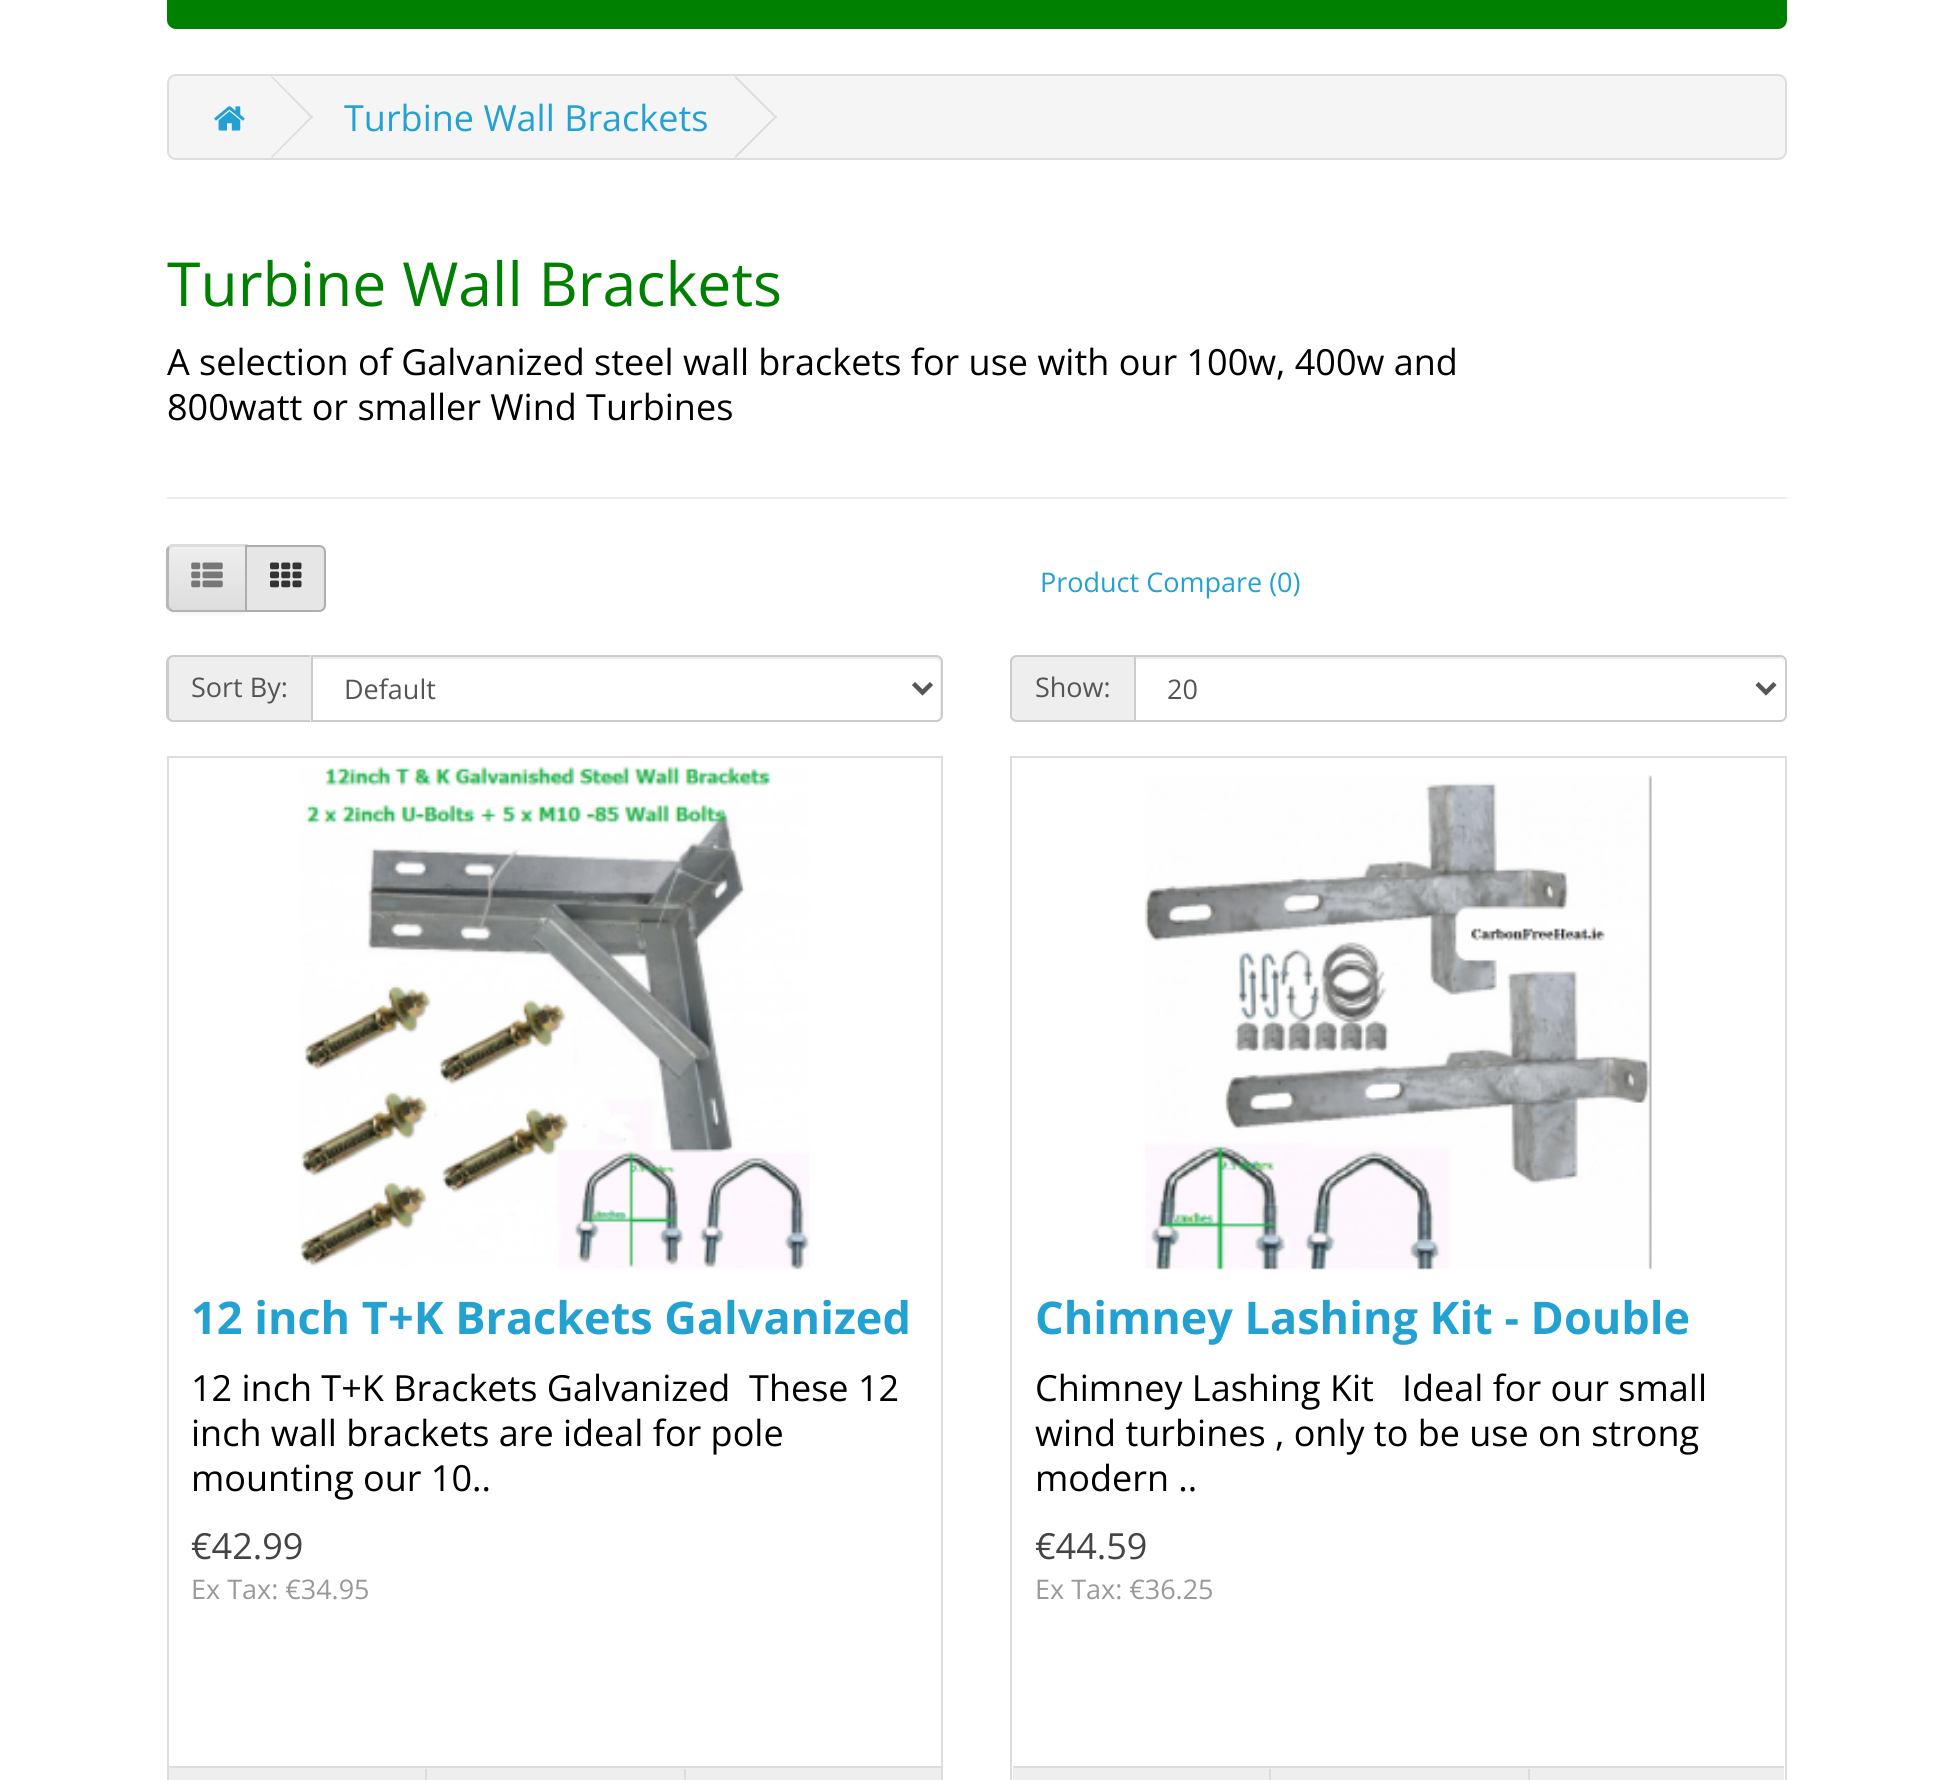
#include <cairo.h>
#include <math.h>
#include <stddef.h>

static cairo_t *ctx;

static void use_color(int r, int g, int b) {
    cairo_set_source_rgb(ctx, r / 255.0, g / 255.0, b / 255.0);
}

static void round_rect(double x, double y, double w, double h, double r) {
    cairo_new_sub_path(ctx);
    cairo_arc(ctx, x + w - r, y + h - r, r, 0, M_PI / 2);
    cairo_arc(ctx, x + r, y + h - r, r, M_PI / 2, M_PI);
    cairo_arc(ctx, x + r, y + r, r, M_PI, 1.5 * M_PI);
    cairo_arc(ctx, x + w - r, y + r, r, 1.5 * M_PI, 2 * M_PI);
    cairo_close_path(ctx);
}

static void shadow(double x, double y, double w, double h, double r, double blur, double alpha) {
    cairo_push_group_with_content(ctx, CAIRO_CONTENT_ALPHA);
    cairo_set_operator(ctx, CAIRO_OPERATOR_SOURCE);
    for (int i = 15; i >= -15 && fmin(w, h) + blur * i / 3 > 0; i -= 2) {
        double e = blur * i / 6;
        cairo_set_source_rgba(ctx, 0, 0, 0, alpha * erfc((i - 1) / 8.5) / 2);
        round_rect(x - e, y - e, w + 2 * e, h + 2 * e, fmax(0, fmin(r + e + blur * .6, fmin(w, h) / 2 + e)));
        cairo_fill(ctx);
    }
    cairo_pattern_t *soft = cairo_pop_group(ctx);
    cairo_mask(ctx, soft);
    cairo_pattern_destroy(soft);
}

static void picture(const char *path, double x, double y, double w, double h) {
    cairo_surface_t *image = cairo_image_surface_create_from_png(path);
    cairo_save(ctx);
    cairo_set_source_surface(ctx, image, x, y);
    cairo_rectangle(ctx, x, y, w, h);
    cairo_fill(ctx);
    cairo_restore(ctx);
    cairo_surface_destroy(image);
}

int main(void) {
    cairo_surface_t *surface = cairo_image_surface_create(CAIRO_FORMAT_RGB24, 1952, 1780);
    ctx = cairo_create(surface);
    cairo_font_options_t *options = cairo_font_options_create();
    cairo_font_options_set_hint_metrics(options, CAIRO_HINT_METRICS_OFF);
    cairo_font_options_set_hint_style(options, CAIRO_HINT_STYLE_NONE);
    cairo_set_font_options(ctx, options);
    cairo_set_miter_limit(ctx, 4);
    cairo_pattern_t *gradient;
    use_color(255, 255, 255);
    cairo_paint(ctx);
    use_color(0, 128, 0);
    round_rect(167, -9, 1620, 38, 9);
    cairo_fill(ctx);
    use_color(245, 245, 245);
    round_rect(168, 75, 1618, 84, 8);
    cairo_fill_preserve(ctx);
    use_color(221, 221, 221);
    cairo_stroke(ctx);
    picture("img1.png", 214, 106, 31, 25);
    cairo_new_path(ctx);
    cairo_move_to(ctx, 271, 77);
    cairo_line_to(ctx, 272, 76);
    cairo_line_to(ctx, 313, 117);
    cairo_line_to(ctx, 312, 119);
    cairo_close_path(ctx);
    cairo_fill(ctx);
    cairo_new_path(ctx);
    cairo_move_to(ctx, 271, 157);
    cairo_line_to(ctx, 312, 115);
    cairo_line_to(ctx, 313, 117);
    cairo_line_to(ctx, 272, 158);
    cairo_close_path(ctx);
    cairo_fill(ctx);
    cairo_select_font_face(ctx, "Open Sans", CAIRO_FONT_SLANT_NORMAL, CAIRO_FONT_WEIGHT_NORMAL);
    cairo_set_font_size(ctx, 36);
    use_color(35, 161, 209);
    cairo_move_to(ctx, 344, 131);
    cairo_show_text(ctx, "Turbine Wall Brackets");
    use_color(221, 221, 221);
    cairo_new_path(ctx);
    cairo_move_to(ctx, 734, 77);
    cairo_line_to(ctx, 736, 76);
    cairo_line_to(ctx, 777, 117);
    cairo_line_to(ctx, 776, 119);
    cairo_close_path(ctx);
    cairo_fill(ctx);
    cairo_new_path(ctx);
    cairo_move_to(ctx, 734, 157);
    cairo_line_to(ctx, 776, 115);
    cairo_line_to(ctx, 777, 117);
    cairo_line_to(ctx, 736, 158);
    cairo_close_path(ctx);
    cairo_fill(ctx);
    cairo_set_font_size(ctx, 60.75);
    use_color(0, 128, 0);
    cairo_move_to(ctx, 167, 306);
    cairo_show_text(ctx, "Turbine Wall Brackets");
    cairo_set_font_size(ctx, 36);
    use_color(0, 0, 0);
    cairo_move_to(ctx, 167, 375);
    cairo_show_text(ctx, "A selection of Galvanized steel wall brackets for use with our 100w, 400w and");
    cairo_move_to(ctx, 167, 420);
    cairo_show_text(ctx, "800watt or smaller Wind Turbines");
    use_color(238, 238, 238);
    cairo_rectangle(ctx, 167, 497, 1620, 2);
    cairo_fill(ctx);
    use_color(0, 0, 0);
    shadow(167, 547, 81, 67, 7, 2, 0.05);
    cairo_save(ctx);
    cairo_new_path(ctx);
    cairo_move_to(ctx, 174, 545);
    cairo_line_to(ctx, 248, 545);
    cairo_line_to(ctx, 248, 612);
    cairo_line_to(ctx, 174, 612);
    cairo_curve_to(ctx, 170, 612, 167, 609, 167, 605);
    cairo_line_to(ctx, 167, 552);
    cairo_curve_to(ctx, 167, 548, 170, 545, 174, 545);
    cairo_close_path(ctx);
    cairo_clip(ctx);
    gradient = cairo_pattern_create_linear(207, 547, 207, 610);
    cairo_pattern_add_color_stop_rgba(gradient, 0, 0.933, 0.933, 0.933, 1);
    cairo_pattern_add_color_stop_rgba(gradient, 1, 0.867, 0.867, 0.867, 1);
    cairo_set_source(ctx, gradient);
    cairo_pattern_destroy(gradient);
    cairo_rectangle(ctx, 167, 547, 78, 63);
    cairo_fill(ctx);
    cairo_restore(ctx);
    use_color(241, 241, 241);
    cairo_new_path(ctx);
    cairo_move_to(ctx, 173, 549);
    cairo_line_to(ctx, 245, 549);
    cairo_line_to(ctx, 245, 547);
    cairo_line_to(ctx, 174, 547);
    cairo_curve_to(ctx, 171, 547, 169, 549, 169, 552);
    cairo_line_to(ctx, 169, 554);
    cairo_curve_to(ctx, 169, 551, 171, 549, 173, 549);
    cairo_close_path(ctx);
    cairo_fill(ctx);
    use_color(221, 221, 221);
    cairo_new_path(ctx);
    cairo_move_to(ctx, 173, 547);
    cairo_line_to(ctx, 170, 548);
    cairo_line_to(ctx, 168, 546);
    cairo_line_to(ctx, 171, 544);
    cairo_line_to(ctx, 248, 544);
    cairo_line_to(ctx, 245, 547);
    cairo_close_path(ctx);
    cairo_fill(ctx);
    cairo_new_path(ctx);
    cairo_move_to(ctx, 248, 544);
    cairo_line_to(ctx, 245, 547);
    cairo_line_to(ctx, 245, 610);
    cairo_line_to(ctx, 248, 612);
    cairo_close_path(ctx);
    cairo_fill(ctx);
    use_color(179, 179, 179);
    cairo_new_path(ctx);
    cairo_move_to(ctx, 248, 612);
    cairo_line_to(ctx, 245, 610);
    cairo_line_to(ctx, 173, 610);
    cairo_line_to(ctx, 170, 608);
    cairo_line_to(ctx, 168, 610);
    cairo_curve_to(ctx, 170, 611, 172, 612, 173, 612);
    cairo_close_path(ctx);
    cairo_fill(ctx);
    use_color(183, 183, 183);
    cairo_new_path(ctx);
    cairo_move_to(ctx, 166, 549);
    cairo_line_to(ctx, 168, 546);
    cairo_line_to(ctx, 170, 548);
    cairo_line_to(ctx, 169, 551);
    cairo_line_to(ctx, 169, 596);
    cairo_curve_to(ctx, 169, 598, 168, 605, 170, 608);
    cairo_line_to(ctx, 168, 610);
    cairo_line_to(ctx, 166, 607);
    cairo_close_path(ctx);
    cairo_fill(ctx);
    picture("img2.png", 191, 562, 32, 26);
    use_color(230, 230, 230);
    cairo_new_path(ctx);
    cairo_move_to(ctx, 246, 546);
    cairo_line_to(ctx, 319, 546);
    cairo_curve_to(ctx, 322.5, 546, 325, 548.5, 325, 552);
    cairo_line_to(ctx, 325, 605);
    cairo_curve_to(ctx, 325, 608.5, 322.5, 611, 319, 611);
    cairo_line_to(ctx, 246, 611);
    cairo_close_path(ctx);
    cairo_fill_preserve(ctx);
    use_color(173, 173, 173);
    cairo_stroke(ctx);
    picture("img3.png", 270, 562, 32, 26);
    cairo_set_font_size(ctx, 27);
    use_color(35, 161, 209);
    cairo_move_to(ctx, 1040, 592);
    cairo_show_text(ctx, "Product Compare (0)");
    use_color(238, 238, 238);
    cairo_new_path(ctx);
    cairo_move_to(ctx, 174, 655);
    cairo_line_to(ctx, 311, 655);
    cairo_line_to(ctx, 311, 722);
    cairo_line_to(ctx, 174, 722);
    cairo_curve_to(ctx, 170, 722, 167, 719, 167, 715);
    cairo_line_to(ctx, 167, 662);
    cairo_curve_to(ctx, 167, 658, 170, 655, 174, 655);
    cairo_close_path(ctx);
    cairo_fill(ctx);
    use_color(204, 204, 204);
    cairo_set_fill_rule(ctx, CAIRO_FILL_RULE_EVEN_ODD);
    cairo_new_path(ctx);
    cairo_move_to(ctx, 173, 655);
    cairo_line_to(ctx, 310, 655);
    cairo_line_to(ctx, 310, 722);
    cairo_line_to(ctx, 173, 722);
    cairo_curve_to(ctx, 170, 722, 166, 719, 166, 716);
    cairo_line_to(ctx, 166, 662);
    cairo_curve_to(ctx, 166, 658, 170, 655, 173, 655);
    cairo_close_path(ctx);
    cairo_move_to(ctx, 173, 657);
    cairo_line_to(ctx, 310, 657);
    cairo_line_to(ctx, 310, 720);
    cairo_line_to(ctx, 173, 720);
    cairo_curve_to(ctx, 171, 720, 169, 718, 169, 716);
    cairo_line_to(ctx, 169, 662);
    cairo_curve_to(ctx, 169, 659, 171, 657, 173, 657);
    cairo_close_path(ctx);
    cairo_fill(ctx);
    use_color(85, 85, 85);
    cairo_move_to(ctx, 191, 697);
    cairo_show_text(ctx, "Sort By:");
    use_color(236, 236, 236);
    cairo_set_fill_rule(ctx, CAIRO_FILL_RULE_WINDING);
    cairo_new_path(ctx);
    cairo_move_to(ctx, 313, 659);
    cairo_line_to(ctx, 936, 659);
    cairo_curve_to(ctx, 938, 659, 940, 661, 940, 664);
    cairo_line_to(ctx, 940, 718);
    cairo_curve_to(ctx, 941, 717, 941, 716, 941, 715);
    cairo_line_to(ctx, 941, 662);
    cairo_curve_to(ctx, 941, 659, 939, 657, 936, 657);
    cairo_line_to(ctx, 313, 657);
    cairo_close_path(ctx);
    cairo_fill(ctx);
    cairo_new_path(ctx);
    cairo_move_to(ctx, 312, 656);
    cairo_line_to(ctx, 936, 656);
    cairo_curve_to(ctx, 939.5, 656, 942, 658.5, 942, 662);
    cairo_line_to(ctx, 942, 715);
    cairo_curve_to(ctx, 942, 718.5, 939.5, 721, 936, 721);
    cairo_line_to(ctx, 312, 721);
    cairo_close_path(ctx);
    use_color(204, 204, 204);
    cairo_stroke(ctx);
    cairo_new_path(ctx);
    cairo_move_to(ctx, 913.5, 683.5);
    cairo_line_to(ctx, 922.5, 692.5);
    cairo_line_to(ctx, 931.5, 683.5);
    use_color(85, 85, 85);
    cairo_set_line_width(ctx, 4.5);
    cairo_stroke(ctx);
    cairo_move_to(ctx, 344, 699);
    cairo_show_text(ctx, "Default");
    use_color(238, 238, 238);
    cairo_new_path(ctx);
    cairo_move_to(ctx, 1017, 655);
    cairo_line_to(ctx, 1134, 655);
    cairo_line_to(ctx, 1134, 722);
    cairo_line_to(ctx, 1017, 722);
    cairo_curve_to(ctx, 1013, 722, 1010, 719, 1010, 715);
    cairo_line_to(ctx, 1010, 662);
    cairo_curve_to(ctx, 1010, 658, 1013, 655, 1017, 655);
    cairo_close_path(ctx);
    cairo_fill(ctx);
    use_color(204, 204, 204);
    cairo_set_fill_rule(ctx, CAIRO_FILL_RULE_EVEN_ODD);
    cairo_new_path(ctx);
    cairo_move_to(ctx, 1017, 655);
    cairo_line_to(ctx, 1134, 655);
    cairo_line_to(ctx, 1134, 722);
    cairo_line_to(ctx, 1017, 722);
    cairo_curve_to(ctx, 1013, 722, 1010, 719, 1010, 716);
    cairo_line_to(ctx, 1010, 662);
    cairo_curve_to(ctx, 1010, 658, 1013, 655, 1017, 655);
    cairo_close_path(ctx);
    cairo_move_to(ctx, 1017, 657);
    cairo_line_to(ctx, 1134, 657);
    cairo_line_to(ctx, 1134, 720);
    cairo_line_to(ctx, 1017, 720);
    cairo_curve_to(ctx, 1015, 720, 1012, 718, 1012, 716);
    cairo_line_to(ctx, 1012, 662);
    cairo_curve_to(ctx, 1012, 659, 1015, 657, 1017, 657);
    cairo_close_path(ctx);
    cairo_fill(ctx);
    use_color(85, 85, 85);
    cairo_move_to(ctx, 1035, 697);
    cairo_show_text(ctx, "Show:");
    use_color(236, 236, 236);
    cairo_set_fill_rule(ctx, CAIRO_FILL_RULE_WINDING);
    cairo_new_path(ctx);
    cairo_move_to(ctx, 1136, 659);
    cairo_line_to(ctx, 1780, 659);
    cairo_curve_to(ctx, 1782, 659, 1784, 661, 1784, 664);
    cairo_line_to(ctx, 1784, 662);
    cairo_curve_to(ctx, 1784, 659, 1782, 657, 1779, 657);
    cairo_line_to(ctx, 1136, 657);
    cairo_close_path(ctx);
    cairo_fill(ctx);
    cairo_new_path(ctx);
    cairo_move_to(ctx, 1135, 656);
    cairo_line_to(ctx, 1780, 656);
    cairo_curve_to(ctx, 1783.5, 656, 1786, 658.5, 1786, 662);
    cairo_line_to(ctx, 1786, 715);
    cairo_curve_to(ctx, 1786, 718.5, 1783.5, 721, 1780, 721);
    cairo_line_to(ctx, 1135, 721);
    cairo_close_path(ctx);
    use_color(204, 204, 204);
    cairo_set_line_width(ctx, 2);
    cairo_stroke(ctx);
    cairo_new_path(ctx);
    cairo_move_to(ctx, 1757, 683.5);
    cairo_line_to(ctx, 1766, 692.5);
    cairo_line_to(ctx, 1775, 683.5);
    use_color(85, 85, 85);
    cairo_set_line_width(ctx, 4.5);
    cairo_stroke(ctx);
    cairo_move_to(ctx, 1167, 699);
    cairo_show_text(ctx, "20");
    cairo_rectangle(ctx, 168, 757, 774, 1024);
    use_color(221, 221, 221);
    cairo_set_line_width(ctx, 2);
    cairo_stroke(ctx);
    picture("img4.png", 299, 766, 511, 504);
    cairo_select_font_face(ctx, "Open Sans", CAIRO_FONT_SLANT_NORMAL, CAIRO_FONT_WEIGHT_BOLD);
    cairo_set_font_size(ctx, 45);
    use_color(35, 161, 209);
    cairo_move_to(ctx, 191, 1334);
    cairo_show_text(ctx, "12 inch T+K Brackets Galvanized");
    cairo_select_font_face(ctx, "Open Sans", CAIRO_FONT_SLANT_NORMAL, CAIRO_FONT_WEIGHT_NORMAL);
    cairo_set_font_size(ctx, 36);
    use_color(0, 0, 0);
    cairo_move_to(ctx, 191, 1401);
    cairo_show_text(ctx, "12 inch T+K Brackets Galvanized  These 12");
    cairo_move_to(ctx, 191, 1446);
    cairo_show_text(ctx, "inch wall brackets are ideal for pole");
    cairo_move_to(ctx, 191, 1491);
    cairo_show_text(ctx, "mounting our 10..");
    use_color(68, 68, 68);
    cairo_move_to(ctx, 191, 1559);
    cairo_show_text(ctx, "€42.99");
    cairo_set_font_size(ctx, 27);
    use_color(153, 153, 153);
    cairo_move_to(ctx, 191, 1599);
    cairo_show_text(ctx, "Ex Tax: €34.95");
    use_color(238, 238, 238);
    cairo_rectangle(ctx, 169, 1768, 772, 12);
    cairo_fill(ctx);
    use_color(221, 221, 221);
    cairo_rectangle(ctx, 169, 1766, 772, 2);
    cairo_fill(ctx);
    cairo_rectangle(ctx, 425, 1769, 2, 11);
    cairo_fill(ctx);
    cairo_rectangle(ctx, 684, 1769, 2, 11);
    cairo_fill(ctx);
    cairo_rectangle(ctx, 1011, 757, 775, 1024);
    cairo_stroke(ctx);
    picture("img5.png", 1144, 775, 508, 495);
    cairo_select_font_face(ctx, "Open Sans", CAIRO_FONT_SLANT_NORMAL, CAIRO_FONT_WEIGHT_BOLD);
    cairo_set_font_size(ctx, 45);
    use_color(35, 161, 209);
    cairo_move_to(ctx, 1035, 1334);
    cairo_show_text(ctx, "Chimney Lashing Kit - Double");
    cairo_select_font_face(ctx, "Open Sans", CAIRO_FONT_SLANT_NORMAL, CAIRO_FONT_WEIGHT_NORMAL);
    cairo_set_font_size(ctx, 36);
    use_color(0, 0, 0);
    cairo_move_to(ctx, 1035, 1401);
    cairo_show_text(ctx, "Chimney Lashing Kit   Ideal for our small");
    cairo_move_to(ctx, 1035, 1446);
    cairo_show_text(ctx, "wind turbines , only to be use on strong");
    cairo_move_to(ctx, 1035, 1491);
    cairo_show_text(ctx, "modern ..");
    use_color(68, 68, 68);
    cairo_move_to(ctx, 1035, 1559);
    cairo_show_text(ctx, "€44.59");
    cairo_set_font_size(ctx, 27);
    use_color(153, 153, 153);
    cairo_move_to(ctx, 1035, 1599);
    cairo_show_text(ctx, "Ex Tax: €36.25");
    use_color(238, 238, 238);
    cairo_rectangle(ctx, 1013, 1768, 771, 12);
    cairo_fill(ctx);
    use_color(221, 221, 221);
    cairo_rectangle(ctx, 1013, 1766, 771, 2);
    cairo_fill(ctx);
    cairo_rectangle(ctx, 1269, 1769, 2, 11);
    cairo_fill(ctx);
    cairo_rectangle(ctx, 1528, 1769, 2, 11);
    cairo_fill(ctx);
    cairo_surface_write_to_png(surface, "result.png");
    cairo_font_options_destroy(options);
    cairo_destroy(ctx);
    cairo_surface_destroy(surface);
    return 0;
}
